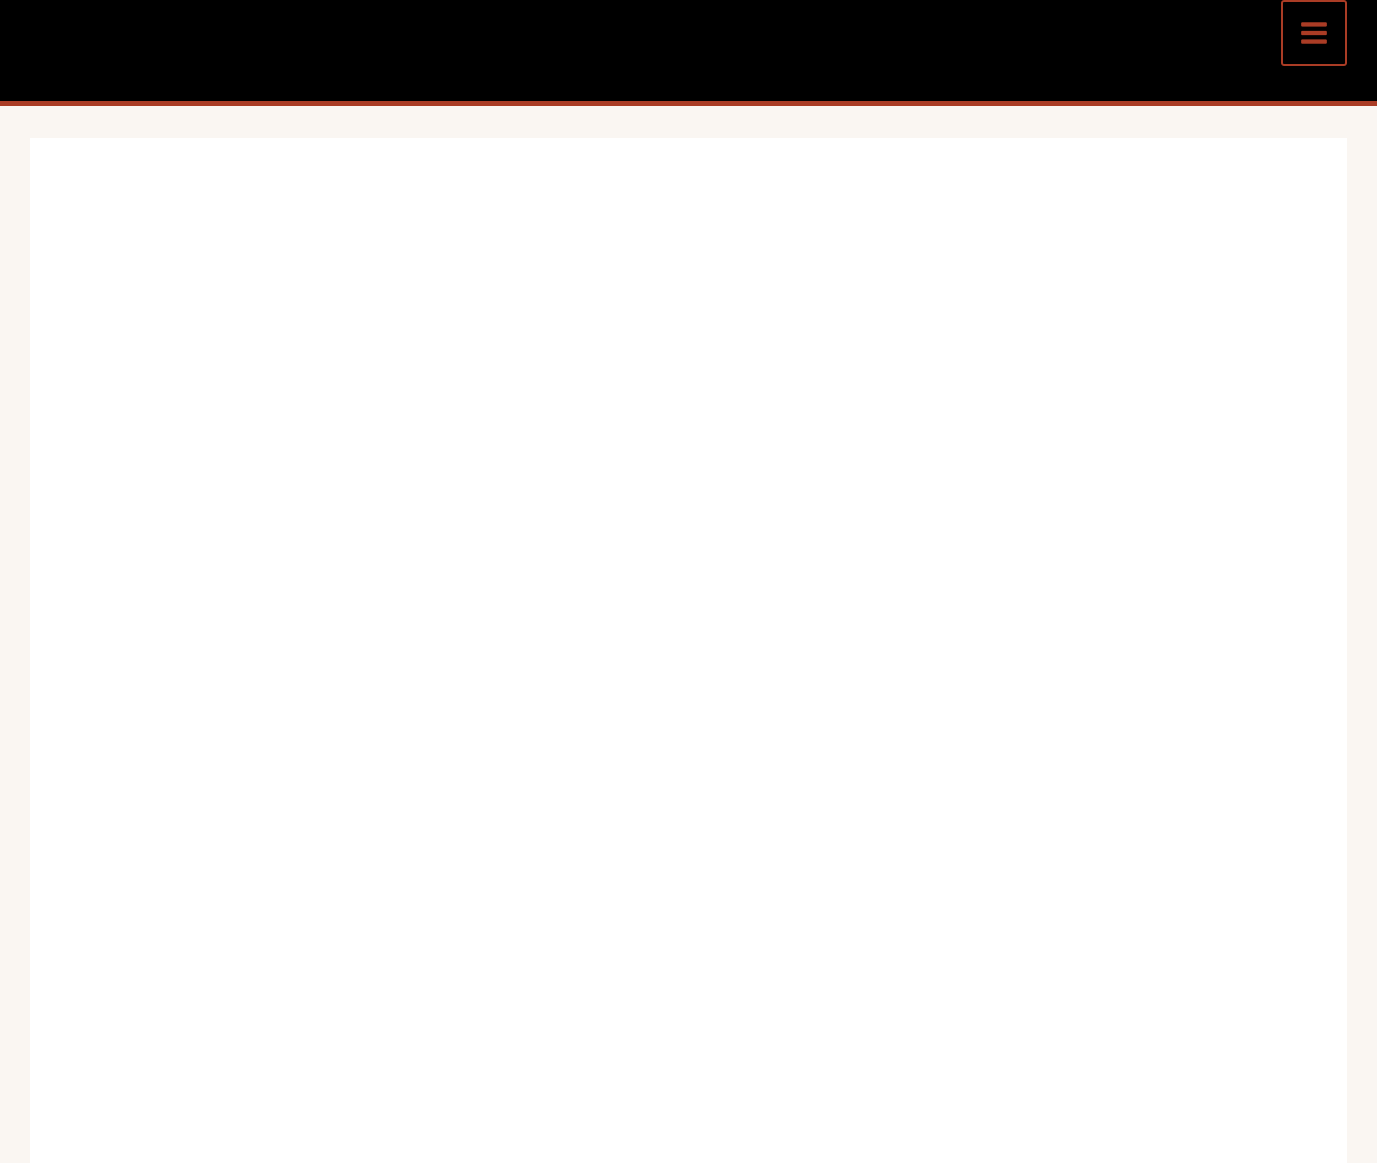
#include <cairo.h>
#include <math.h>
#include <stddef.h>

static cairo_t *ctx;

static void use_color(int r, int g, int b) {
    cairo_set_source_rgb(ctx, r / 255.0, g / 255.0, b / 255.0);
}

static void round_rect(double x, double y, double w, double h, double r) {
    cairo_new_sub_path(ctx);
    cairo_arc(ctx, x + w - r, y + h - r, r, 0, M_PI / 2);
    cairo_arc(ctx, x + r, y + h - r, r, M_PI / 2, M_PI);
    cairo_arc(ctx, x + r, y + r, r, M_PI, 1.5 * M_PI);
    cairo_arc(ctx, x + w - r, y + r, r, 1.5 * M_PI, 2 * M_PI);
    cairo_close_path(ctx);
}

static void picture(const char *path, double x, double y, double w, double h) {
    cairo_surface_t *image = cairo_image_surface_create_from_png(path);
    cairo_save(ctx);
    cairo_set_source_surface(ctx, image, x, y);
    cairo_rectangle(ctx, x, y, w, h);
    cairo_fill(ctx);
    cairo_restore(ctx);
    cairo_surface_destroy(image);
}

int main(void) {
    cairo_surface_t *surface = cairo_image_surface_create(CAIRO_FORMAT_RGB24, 1377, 1163);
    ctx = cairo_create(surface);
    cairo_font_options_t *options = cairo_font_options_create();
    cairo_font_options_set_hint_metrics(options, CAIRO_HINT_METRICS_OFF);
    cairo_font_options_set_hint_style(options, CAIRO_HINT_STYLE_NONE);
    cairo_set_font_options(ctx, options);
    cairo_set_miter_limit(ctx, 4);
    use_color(250, 246, 242);
    cairo_paint(ctx);
    use_color(0, 0, 0);
    cairo_rectangle(ctx, 0, 0, 1377, 101);
    cairo_fill(ctx);
    use_color(170, 60, 37);
    cairo_rectangle(ctx, 0, 101, 1377, 5);
    cairo_fill(ctx);
    round_rect(1282, 1, 64, 64, 2);
    cairo_stroke(ctx);
    picture("img1.png", 1301, 22, 26, 22);
    use_color(255, 255, 255);
    cairo_rectangle(ctx, 30, 138, 1317, 1025);
    cairo_fill(ctx);
    cairo_surface_write_to_png(surface, "result.png");
    cairo_font_options_destroy(options);
    cairo_destroy(ctx);
    cairo_surface_destroy(surface);
    return 0;
}
